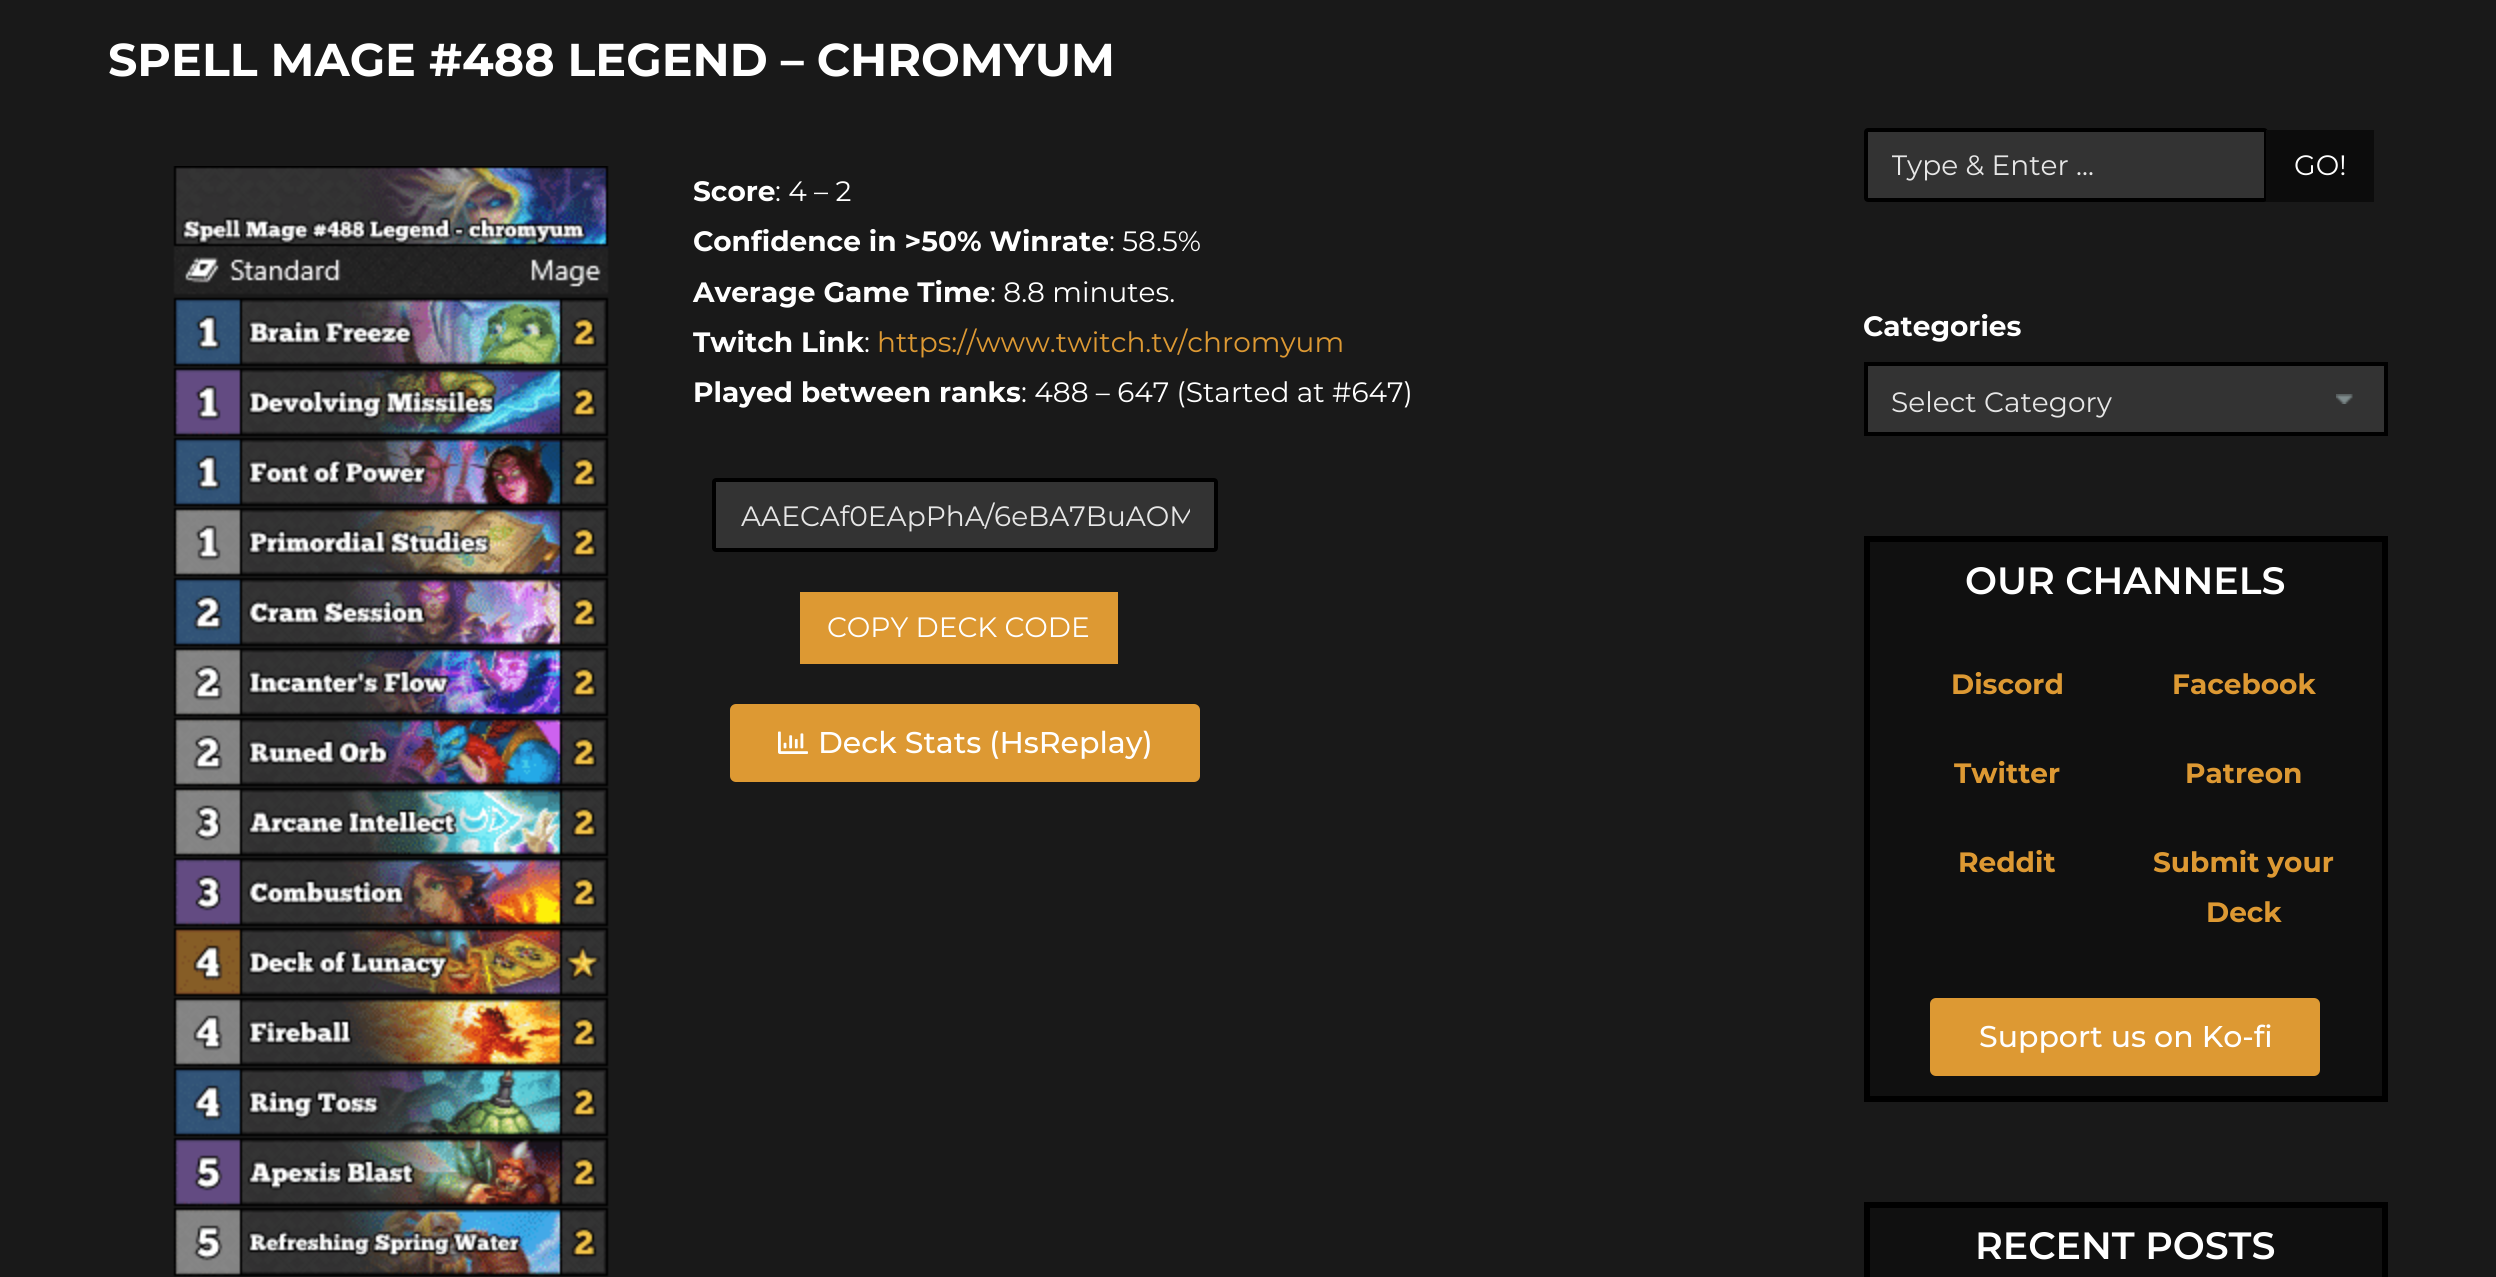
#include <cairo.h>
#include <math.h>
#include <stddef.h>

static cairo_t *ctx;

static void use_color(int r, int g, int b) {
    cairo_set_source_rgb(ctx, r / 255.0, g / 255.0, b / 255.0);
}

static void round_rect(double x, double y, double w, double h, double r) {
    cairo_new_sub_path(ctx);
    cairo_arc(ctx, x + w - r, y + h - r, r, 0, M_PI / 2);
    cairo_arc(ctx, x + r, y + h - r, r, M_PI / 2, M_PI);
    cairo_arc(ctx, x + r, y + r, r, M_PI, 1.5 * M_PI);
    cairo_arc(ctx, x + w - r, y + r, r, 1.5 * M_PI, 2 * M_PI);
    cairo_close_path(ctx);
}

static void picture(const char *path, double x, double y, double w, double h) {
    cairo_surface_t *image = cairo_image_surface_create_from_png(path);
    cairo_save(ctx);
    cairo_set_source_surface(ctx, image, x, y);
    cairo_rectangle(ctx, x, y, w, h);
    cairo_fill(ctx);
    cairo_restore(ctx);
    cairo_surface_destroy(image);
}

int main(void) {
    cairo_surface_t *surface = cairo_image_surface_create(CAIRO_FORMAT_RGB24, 2496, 1277);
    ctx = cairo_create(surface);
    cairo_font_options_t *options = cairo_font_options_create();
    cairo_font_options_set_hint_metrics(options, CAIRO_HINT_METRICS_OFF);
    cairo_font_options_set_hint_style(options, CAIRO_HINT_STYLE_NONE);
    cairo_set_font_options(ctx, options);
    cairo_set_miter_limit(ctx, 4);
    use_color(25, 25, 25);
    cairo_paint(ctx);
    cairo_select_font_face(ctx, "Montserrat", CAIRO_FONT_SLANT_NORMAL, CAIRO_FONT_WEIGHT_BOLD);
    cairo_set_font_size(ctx, 46);
    use_color(255, 255, 255);
    cairo_move_to(ctx, 108, 76);
    cairo_show_text(ctx, "SPELL MAGE #488 LEGEND – CHROMYUM");
    picture("img1.png", 173, 166, 436, 1111);
    cairo_set_font_size(ctx, 28);
    cairo_move_to(ctx, 693, 201);
    cairo_show_text(ctx, "Score");
    cairo_select_font_face(ctx, "Montserrat", CAIRO_FONT_SLANT_NORMAL, CAIRO_FONT_WEIGHT_NORMAL);
    cairo_move_to(ctx, 775, 201);
    cairo_show_text(ctx, ": 4 – 2");
    cairo_select_font_face(ctx, "Montserrat", CAIRO_FONT_SLANT_NORMAL, CAIRO_FONT_WEIGHT_BOLD);
    cairo_move_to(ctx, 693, 251);
    cairo_show_text(ctx, "Confidence in >50% Winrate");
    cairo_select_font_face(ctx, "Montserrat", CAIRO_FONT_SLANT_NORMAL, CAIRO_FONT_WEIGHT_NORMAL);
    cairo_move_to(ctx, 1109, 251);
    cairo_show_text(ctx, ": 58.5%");
    cairo_select_font_face(ctx, "Montserrat", CAIRO_FONT_SLANT_NORMAL, CAIRO_FONT_WEIGHT_BOLD);
    cairo_move_to(ctx, 693, 302);
    cairo_show_text(ctx, "Average Game Time");
    cairo_select_font_face(ctx, "Montserrat", CAIRO_FONT_SLANT_NORMAL, CAIRO_FONT_WEIGHT_NORMAL);
    cairo_move_to(ctx, 990, 302);
    cairo_show_text(ctx, ": 8.8 minutes.");
    cairo_select_font_face(ctx, "Montserrat", CAIRO_FONT_SLANT_NORMAL, CAIRO_FONT_WEIGHT_BOLD);
    cairo_move_to(ctx, 693, 352);
    cairo_show_text(ctx, "Twitch Link");
    cairo_select_font_face(ctx, "Montserrat", CAIRO_FONT_SLANT_NORMAL, CAIRO_FONT_WEIGHT_NORMAL);
    cairo_move_to(ctx, 864, 352);
    cairo_show_text(ctx, ":");
    use_color(221, 153, 51);
    cairo_move_to(ctx, 877, 352);
    cairo_show_text(ctx, "https://www.twitch.tv/chromyum");
    cairo_select_font_face(ctx, "Montserrat", CAIRO_FONT_SLANT_NORMAL, CAIRO_FONT_WEIGHT_BOLD);
    use_color(255, 255, 255);
    cairo_move_to(ctx, 693, 402);
    cairo_show_text(ctx, "Played between ranks");
    cairo_select_font_face(ctx, "Montserrat", CAIRO_FONT_SLANT_NORMAL, CAIRO_FONT_WEIGHT_NORMAL);
    cairo_move_to(ctx, 1021, 402);
    cairo_show_text(ctx, ": 488 – 647 (Started at #647)");
    use_color(51, 51, 51);
    round_rect(714, 480, 502, 70, 2);
    cairo_fill_preserve(ctx);
    use_color(0, 0, 0);
    cairo_set_line_width(ctx, 4);
    cairo_stroke(ctx);
    cairo_save(ctx);
    cairo_rectangle(ctx, 740, 498, 450, 36);
    cairo_clip(ctx);
    use_color(230, 230, 230);
    cairo_move_to(ctx, 741, 526);
    cairo_show_text(ctx, "AAECAf0EApPhA/6eBA7BuAOM");
    cairo_restore(ctx);
    use_color(221, 153, 51);
    cairo_rectangle(ctx, 800, 592, 318, 72);
    cairo_fill(ctx);
    use_color(255, 255, 255);
    cairo_move_to(ctx, 827, 637);
    cairo_show_text(ctx, "COPY DECK CODE");
    use_color(221, 153, 51);
    round_rect(730, 704, 470, 78, 6);
    cairo_fill(ctx);
    picture("img2.png", 778, 731, 30, 23);
    cairo_select_font_face(ctx, "Montserrat Medium", CAIRO_FONT_SLANT_NORMAL, CAIRO_FONT_WEIGHT_NORMAL);
    cairo_set_font_size(ctx, 30);
    use_color(255, 255, 255);
    cairo_move_to(ctx, 818, 753);
    cairo_show_text(ctx, "Deck Stats (HsReplay)");
    use_color(51, 51, 51);
    round_rect(1866, 130, 400, 70, 2);
    cairo_fill_preserve(ctx);
    use_color(0, 0, 0);
    cairo_stroke(ctx);
    cairo_save(ctx);
    cairo_rectangle(ctx, 1892, 148, 348, 36);
    cairo_clip(ctx);
    cairo_select_font_face(ctx, "Montserrat", CAIRO_FONT_SLANT_NORMAL, CAIRO_FONT_WEIGHT_NORMAL);
    cairo_set_font_size(ctx, 28);
    use_color(230, 230, 230);
    cairo_move_to(ctx, 1891, 175);
    cairo_show_text(ctx, "Type & Enter ...");
    cairo_restore(ctx);
    use_color(12, 12, 12);
    cairo_rectangle(ctx, 2266, 130, 108, 72);
    cairo_fill(ctx);
    cairo_select_font_face(ctx, "Montserrat", CAIRO_FONT_SLANT_NORMAL, CAIRO_FONT_WEIGHT_NORMAL);
    cairo_set_font_size(ctx, 28);
    use_color(255, 255, 255);
    cairo_move_to(ctx, 2294, 175);
    cairo_show_text(ctx, "GO!");
    cairo_select_font_face(ctx, "Montserrat", CAIRO_FONT_SLANT_NORMAL, CAIRO_FONT_WEIGHT_BOLD);
    cairo_move_to(ctx, 1863, 336);
    cairo_show_text(ctx, "Categories");
    use_color(51, 51, 51);
    cairo_rectangle(ctx, 1868, 366, 516, 66);
    cairo_fill(ctx);
    picture("img3.png", 2336, 394, 17, 10);
    cairo_rectangle(ctx, 1866, 364, 520, 70);
    use_color(0, 0, 0);
    cairo_stroke(ctx);
    cairo_select_font_face(ctx, "Montserrat", CAIRO_FONT_SLANT_NORMAL, CAIRO_FONT_WEIGHT_NORMAL);
    use_color(230, 230, 230);
    cairo_move_to(ctx, 1891, 412);
    cairo_show_text(ctx, "Select Category");
    use_color(16, 16, 16);
    cairo_rectangle(ctx, 1867, 539, 518, 560);
    cairo_fill_preserve(ctx);
    use_color(0, 0, 0);
    cairo_set_line_width(ctx, 6);
    cairo_stroke(ctx);
    cairo_select_font_face(ctx, "Montserrat SemiBold", CAIRO_FONT_SLANT_NORMAL, CAIRO_FONT_WEIGHT_NORMAL);
    cairo_set_font_size(ctx, 38);
    use_color(255, 255, 255);
    cairo_move_to(ctx, 1965, 594);
    cairo_show_text(ctx, "OUR CHANNELS");
    cairo_select_font_face(ctx, "Montserrat", CAIRO_FONT_SLANT_NORMAL, CAIRO_FONT_WEIGHT_BOLD);
    cairo_set_font_size(ctx, 28);
    use_color(221, 153, 51);
    cairo_move_to(ctx, 1951, 694);
    cairo_show_text(ctx, "Discord");
    cairo_move_to(ctx, 1954, 783);
    cairo_show_text(ctx, "Twitter");
    cairo_move_to(ctx, 1958, 872);
    cairo_show_text(ctx, "Reddit");
    cairo_move_to(ctx, 2172, 694);
    cairo_show_text(ctx, "Facebook");
    cairo_move_to(ctx, 2185, 783);
    cairo_show_text(ctx, "Patreon");
    cairo_move_to(ctx, 2153, 872);
    cairo_show_text(ctx, "Submit your");
    cairo_move_to(ctx, 2206, 922);
    cairo_show_text(ctx, "Deck");
    round_rect(1930, 998, 390, 78, 6);
    cairo_fill(ctx);
    cairo_select_font_face(ctx, "Montserrat Medium", CAIRO_FONT_SLANT_NORMAL, CAIRO_FONT_WEIGHT_NORMAL);
    cairo_set_font_size(ctx, 30);
    use_color(255, 255, 255);
    cairo_move_to(ctx, 1979, 1047);
    cairo_show_text(ctx, "Support us on Ko-fi");
    use_color(16, 16, 16);
    cairo_rectangle(ctx, 1867, 1205, 518, 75);
    cairo_fill_preserve(ctx);
    use_color(0, 0, 0);
    cairo_stroke(ctx);
    cairo_select_font_face(ctx, "Montserrat SemiBold", CAIRO_FONT_SLANT_NORMAL, CAIRO_FONT_WEIGHT_NORMAL);
    cairo_set_font_size(ctx, 38);
    use_color(255, 255, 255);
    cairo_move_to(ctx, 1975, 1259);
    cairo_show_text(ctx, "RECENT POSTS");
    cairo_surface_write_to_png(surface, "result.png");
    cairo_font_options_destroy(options);
    cairo_destroy(ctx);
    cairo_surface_destroy(surface);
    return 0;
}
